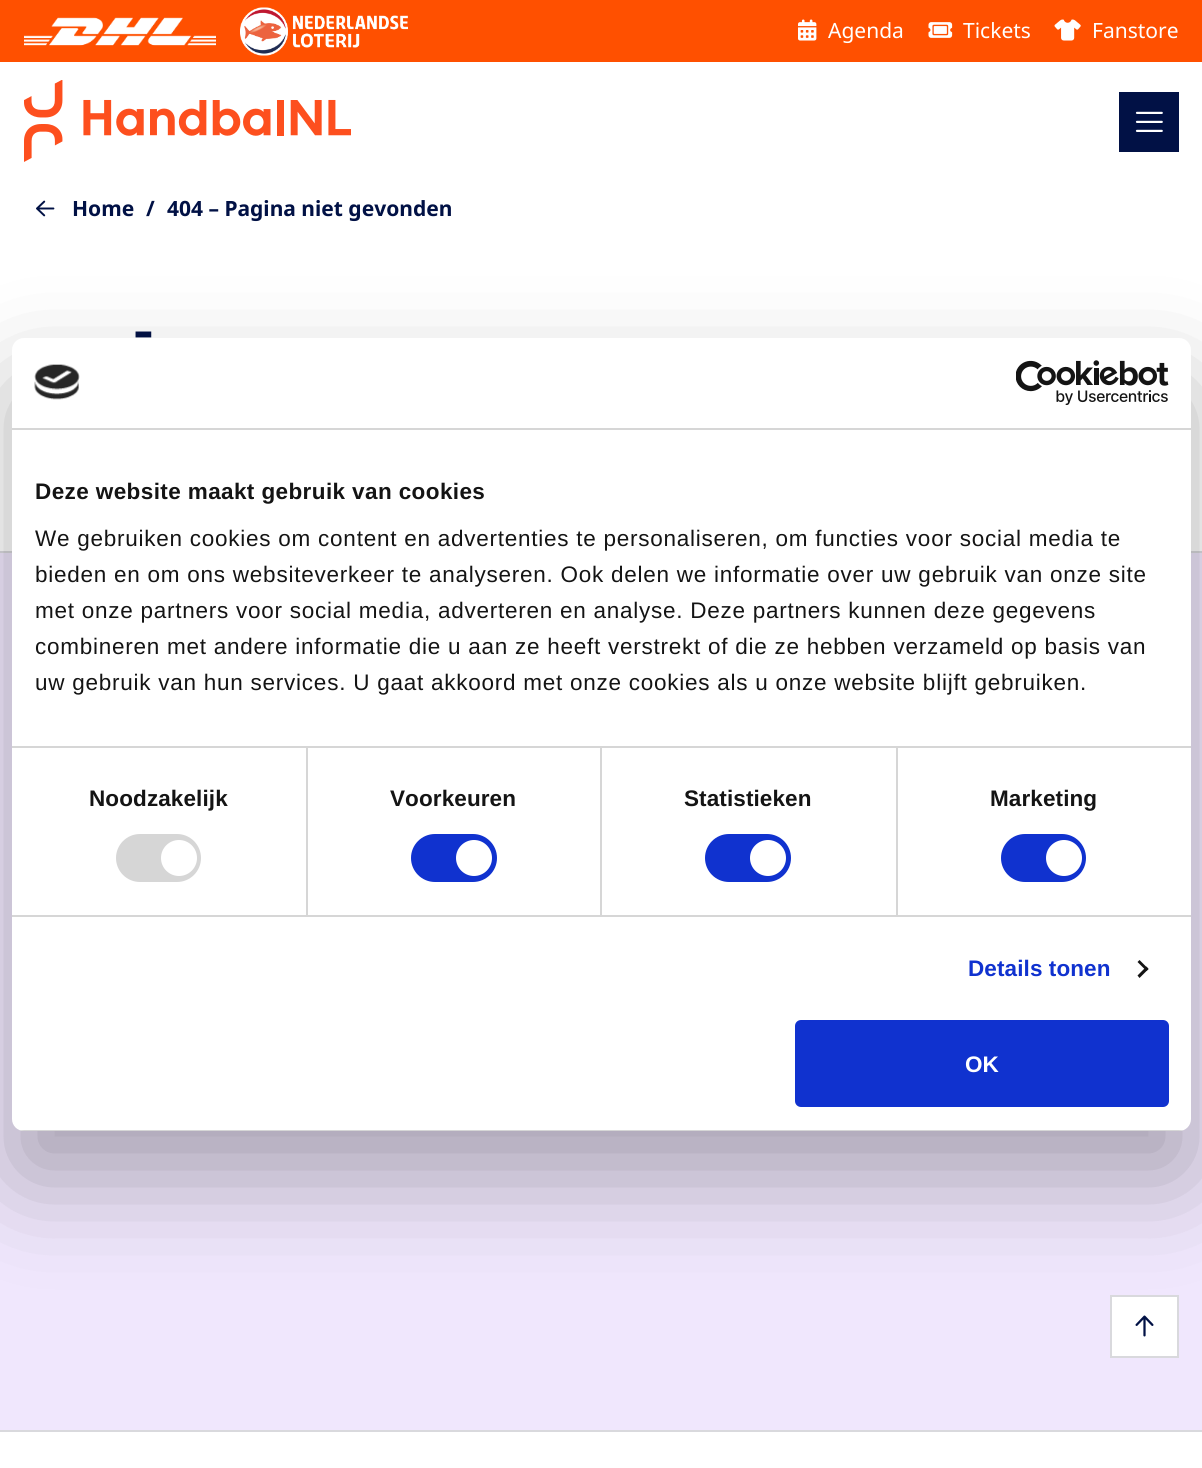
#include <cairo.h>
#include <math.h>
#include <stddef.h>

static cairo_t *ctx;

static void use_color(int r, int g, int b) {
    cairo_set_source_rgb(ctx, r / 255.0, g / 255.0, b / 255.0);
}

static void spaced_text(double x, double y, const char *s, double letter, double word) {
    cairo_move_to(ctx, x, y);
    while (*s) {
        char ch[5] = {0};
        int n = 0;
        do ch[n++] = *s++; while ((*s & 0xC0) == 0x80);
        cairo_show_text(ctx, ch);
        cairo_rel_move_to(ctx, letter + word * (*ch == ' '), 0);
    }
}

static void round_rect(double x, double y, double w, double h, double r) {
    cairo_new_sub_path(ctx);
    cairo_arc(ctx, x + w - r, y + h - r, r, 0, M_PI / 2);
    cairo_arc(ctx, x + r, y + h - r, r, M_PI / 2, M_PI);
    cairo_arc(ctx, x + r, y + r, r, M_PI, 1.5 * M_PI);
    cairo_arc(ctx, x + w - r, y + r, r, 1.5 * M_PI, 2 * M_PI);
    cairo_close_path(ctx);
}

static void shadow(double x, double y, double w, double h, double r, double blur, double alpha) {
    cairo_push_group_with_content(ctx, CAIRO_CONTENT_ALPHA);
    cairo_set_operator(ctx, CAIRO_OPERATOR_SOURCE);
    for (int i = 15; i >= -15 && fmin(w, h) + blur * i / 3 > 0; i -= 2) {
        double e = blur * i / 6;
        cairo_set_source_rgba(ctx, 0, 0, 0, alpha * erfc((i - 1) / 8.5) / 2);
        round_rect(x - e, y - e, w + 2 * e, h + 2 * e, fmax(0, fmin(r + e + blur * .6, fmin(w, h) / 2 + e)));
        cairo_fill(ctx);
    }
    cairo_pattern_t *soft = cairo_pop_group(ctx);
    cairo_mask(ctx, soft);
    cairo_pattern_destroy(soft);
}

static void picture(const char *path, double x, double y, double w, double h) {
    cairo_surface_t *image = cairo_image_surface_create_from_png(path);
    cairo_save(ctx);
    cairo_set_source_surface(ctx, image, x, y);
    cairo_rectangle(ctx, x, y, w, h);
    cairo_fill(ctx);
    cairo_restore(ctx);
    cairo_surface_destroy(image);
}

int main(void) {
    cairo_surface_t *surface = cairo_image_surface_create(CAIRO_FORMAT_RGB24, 1202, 1468);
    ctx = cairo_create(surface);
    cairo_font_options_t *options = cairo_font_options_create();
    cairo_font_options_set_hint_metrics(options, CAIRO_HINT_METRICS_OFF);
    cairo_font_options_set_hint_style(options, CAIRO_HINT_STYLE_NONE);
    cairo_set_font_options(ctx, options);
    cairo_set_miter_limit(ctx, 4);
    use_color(255, 255, 255);
    cairo_paint(ctx);
    use_color(255, 80, 0);
    cairo_rectangle(ctx, 0, 0, 1202, 62);
    cairo_fill(ctx);
    picture("img1.png", 24, 17, 192, 29);
    picture("img2.png", 240, 7, 168, 49);
    picture("img3.png", 798, 19, 19, 22);
    cairo_select_font_face(ctx, "Noto Sans", CAIRO_FONT_SLANT_NORMAL, CAIRO_FONT_WEIGHT_NORMAL);
    cairo_set_font_size(ctx, 21);
    use_color(255, 255, 255);
    cairo_move_to(ctx, 828, 38);
    cairo_show_text(ctx, "Agenda");
    picture("img4.png", 928, 22, 25, 16);
    cairo_move_to(ctx, 963, 38);
    cairo_show_text(ctx, "Tickets");
    picture("img5.png", 1054, 19, 27, 22);
    cairo_move_to(ctx, 1092, 38);
    cairo_show_text(ctx, "Fanstore");
    picture("img6.png", 24, 80, 327, 82);
    use_color(1, 17, 69);
    cairo_rectangle(ctx, 1119, 92, 60, 60);
    cairo_fill(ctx);
    picture("img7.png", 1135, 111, 28, 21);
    picture("img8.png", 36, 200, 19, 17);
    cairo_select_font_face(ctx, "Noto Sans", CAIRO_FONT_SLANT_NORMAL, CAIRO_FONT_WEIGHT_BOLD);
    cairo_move_to(ctx, 72, 216);
    cairo_show_text(ctx, "Home");
    cairo_move_to(ctx, 146, 216);
    cairo_show_text(ctx, "/");
    cairo_move_to(ctx, 167, 216);
    cairo_show_text(ctx, "404 – Pagina niet gevonden");
    cairo_select_font_face(ctx, "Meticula", CAIRO_FONT_SLANT_NORMAL, CAIRO_FONT_WEIGHT_BOLD);
    cairo_set_font_size(ctx, 48);
    cairo_move_to(ctx, 133, 350);
    cairo_show_text(ctx, "-");
    use_color(240, 231, 253);
    cairo_rectangle(ctx, 0, 553, 1202, 877);
    cairo_fill(ctx);
    use_color(217, 217, 221);
    cairo_rectangle(ctx, 0, 551, 1202, 2);
    cairo_fill(ctx);
    use_color(255, 255, 255);
    cairo_rectangle(ctx, 1111, 1296, 67, 61);
    cairo_fill_preserve(ctx);
    use_color(217, 217, 221);
    cairo_stroke(ctx);
    picture("img9.png", 1135, 1315, 19, 22);
    cairo_rectangle(ctx, 0, 1430, 1202, 2);
    cairo_fill(ctx);
    use_color(0, 0, 0);
    shadow(12, 386, 1179, 793, 12, 51, 0.3);
    use_color(255, 255, 255);
    round_rect(12, 338, 1179, 793, 12);
    cairo_fill(ctx);
    use_color(214, 214, 214);
    cairo_rectangle(ctx, 12, 428, 1179, 2);
    cairo_fill(ctx);
    picture("img10.png", 34, 364, 46, 36);
    picture("img11.png", 1016, 360, 153, 45);
    cairo_rectangle(ctx, 306, 747, 2, 168);
    cairo_fill(ctx);
    cairo_rectangle(ctx, 600, 747, 2, 168);
    cairo_fill(ctx);
    cairo_rectangle(ctx, 896, 747, 2, 168);
    cairo_fill(ctx);
    cairo_rectangle(ctx, 12, 746, 1179, 2);
    cairo_fill(ctx);
    cairo_select_font_face(ctx, "Liberation Sans", CAIRO_FONT_SLANT_NORMAL, CAIRO_FONT_WEIGHT_BOLD);
    cairo_set_font_size(ctx, 22.5);
    use_color(20, 20, 20);
    spaced_text(35, 499, "Deze website maakt gebruik van cookies", 0.4, 0);
    cairo_select_font_face(ctx, "Liberation Sans", CAIRO_FONT_SLANT_NORMAL, CAIRO_FONT_WEIGHT_NORMAL);
    spaced_text(35, 546, "We gebruiken cookies om content en advertenties te personaliseren, om functies voor social media te", 0.75, 0);
    spaced_text(35, 582, "bieden en om ons websiteverkeer te analyseren. Ook delen we informatie over uw gebruik van onze site", 0.75, 0);
    spaced_text(35, 618, "met onze partners voor social media, adverteren en analyse. Deze partners kunnen deze gegevens", 0.75, 0);
    spaced_text(35, 654, "combineren met andere informatie die u aan ze heeft verstrekt of die ze hebben verzameld op basis van", 0.75, 0);
    spaced_text(35, 690, "uw gebruik van hun services. U gaat akkoord met onze cookies als u onze website blijft gebruiken.", 0.75, 0);
    use_color(214, 214, 214);
    cairo_rectangle(ctx, 12, 915, 1179, 2);
    cairo_fill(ctx);
    cairo_select_font_face(ctx, "Liberation Sans", CAIRO_FONT_SLANT_NORMAL, CAIRO_FONT_WEIGHT_BOLD);
    use_color(20, 20, 20);
    spaced_text(89, 806, "Noodzakelijk", 0.1, 0);
    use_color(214, 214, 214);
    round_rect(116, 834, 85, 48, 24);
    cairo_fill(ctx);
    use_color(255, 255, 255);
    cairo_arc(ctx, 179, 858, 18, 0, 2 * M_PI);
    cairo_fill(ctx);
    use_color(20, 20, 20);
    spaced_text(390, 806, "Voorkeuren", 0.1, 0);
    use_color(16, 50, 207);
    round_rect(411, 834, 86, 48, 24);
    cairo_fill(ctx);
    use_color(255, 255, 255);
    cairo_arc(ctx, 474, 858, 18, 0, 2 * M_PI);
    cairo_fill(ctx);
    use_color(20, 20, 20);
    spaced_text(684, 806, "Statistieken", 0.1, 0);
    use_color(16, 50, 207);
    round_rect(705, 834, 86, 48, 24);
    cairo_fill(ctx);
    use_color(255, 255, 255);
    cairo_arc(ctx, 768, 858, 18, 0, 2 * M_PI);
    cairo_fill(ctx);
    use_color(20, 20, 20);
    spaced_text(990, 806, "Marketing", 0.1, 0);
    use_color(16, 50, 207);
    round_rect(1001, 834, 85, 48, 24);
    cairo_fill(ctx);
    use_color(255, 255, 255);
    cairo_arc(ctx, 1064, 858, 18, 0, 2 * M_PI);
    cairo_fill(ctx);
    use_color(16, 50, 207);
    spaced_text(968, 976, "Details tonen", 0.1, 0);
    use_color(20, 20, 20);
    cairo_new_path(ctx);
    cairo_move_to(ctx, 1139.5, 960);
    cairo_line_to(ctx, 1148.5, 969);
    cairo_line_to(ctx, 1146.5, 971);
    cairo_line_to(ctx, 1137.5, 962);
    cairo_close_path(ctx);
    cairo_fill(ctx);
    cairo_new_path(ctx);
    cairo_move_to(ctx, 1146.5, 966.5);
    cairo_line_to(ctx, 1148.5, 969);
    cairo_line_to(ctx, 1139.5, 978);
    cairo_line_to(ctx, 1137.5, 975.5);
    cairo_close_path(ctx);
    cairo_fill(ctx);
    cairo_save(ctx);
    round_rect(12, 338, 1179, 793, 12);
    cairo_clip(ctx);
    use_color(214, 214, 214);
    cairo_rectangle(ctx, 12, 1130, 1179, 1);
    cairo_fill(ctx);
    cairo_restore(ctx);
    use_color(16, 50, 207);
    round_rect(796.5, 1021.5, 371, 84, 4.5);
    cairo_fill_preserve(ctx);
    cairo_set_line_width(ctx, 3);
    cairo_stroke(ctx);
    use_color(255, 255, 255);
    cairo_move_to(ctx, 965, 1072);
    cairo_show_text(ctx, "OK");
    cairo_surface_write_to_png(surface, "result.png");
    cairo_font_options_destroy(options);
    cairo_destroy(ctx);
    cairo_surface_destroy(surface);
    return 0;
}
